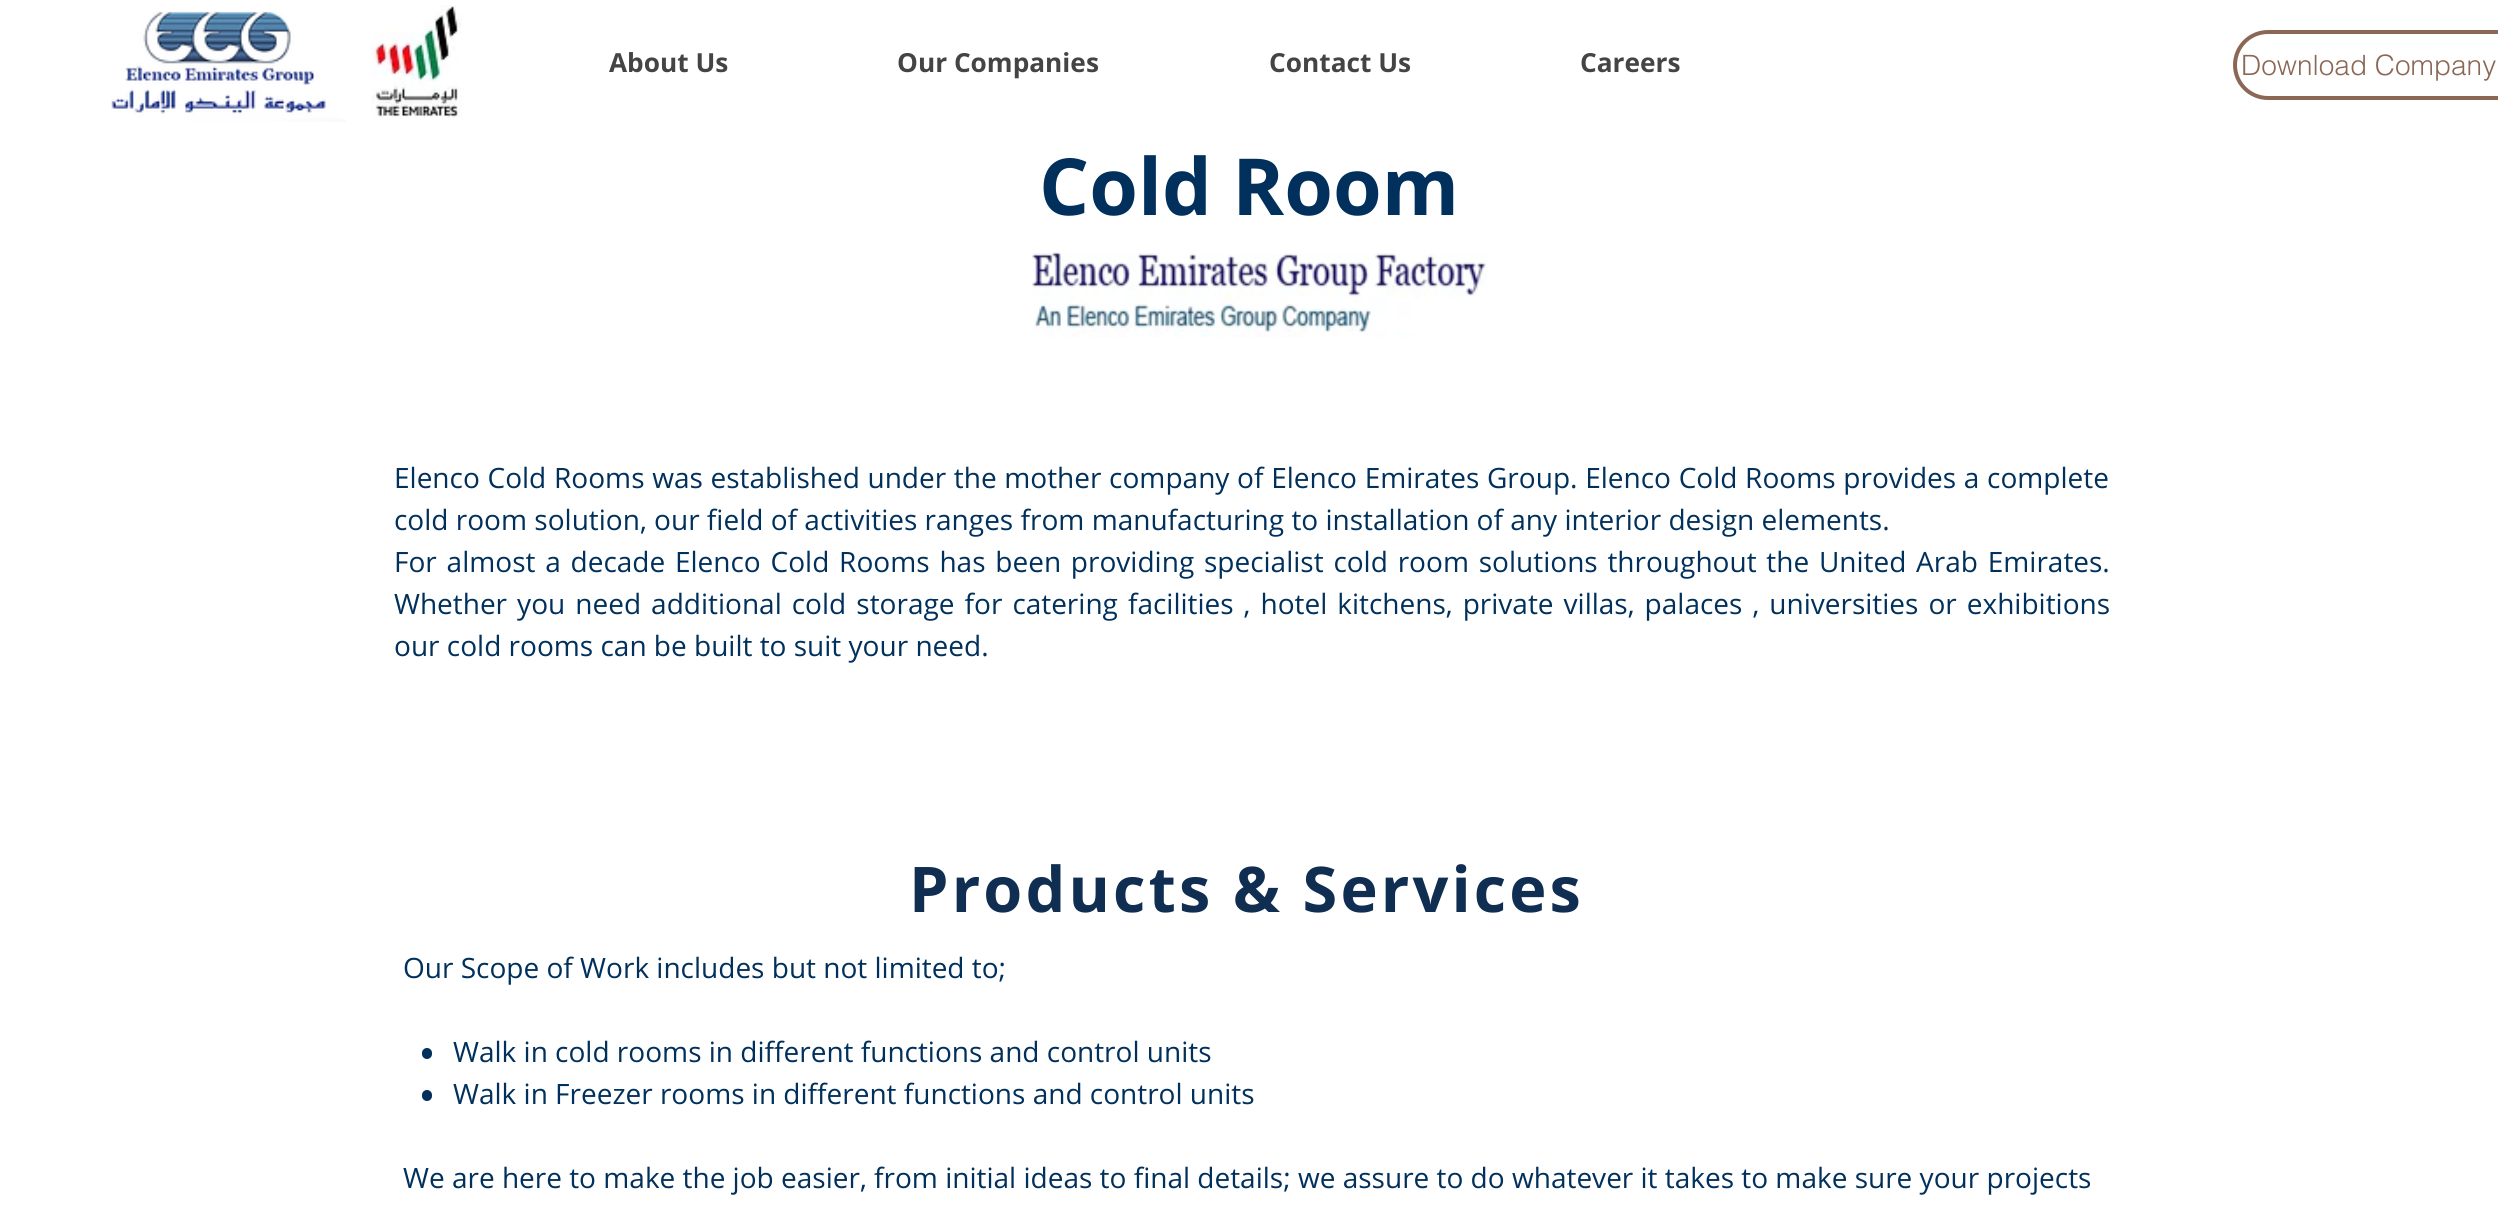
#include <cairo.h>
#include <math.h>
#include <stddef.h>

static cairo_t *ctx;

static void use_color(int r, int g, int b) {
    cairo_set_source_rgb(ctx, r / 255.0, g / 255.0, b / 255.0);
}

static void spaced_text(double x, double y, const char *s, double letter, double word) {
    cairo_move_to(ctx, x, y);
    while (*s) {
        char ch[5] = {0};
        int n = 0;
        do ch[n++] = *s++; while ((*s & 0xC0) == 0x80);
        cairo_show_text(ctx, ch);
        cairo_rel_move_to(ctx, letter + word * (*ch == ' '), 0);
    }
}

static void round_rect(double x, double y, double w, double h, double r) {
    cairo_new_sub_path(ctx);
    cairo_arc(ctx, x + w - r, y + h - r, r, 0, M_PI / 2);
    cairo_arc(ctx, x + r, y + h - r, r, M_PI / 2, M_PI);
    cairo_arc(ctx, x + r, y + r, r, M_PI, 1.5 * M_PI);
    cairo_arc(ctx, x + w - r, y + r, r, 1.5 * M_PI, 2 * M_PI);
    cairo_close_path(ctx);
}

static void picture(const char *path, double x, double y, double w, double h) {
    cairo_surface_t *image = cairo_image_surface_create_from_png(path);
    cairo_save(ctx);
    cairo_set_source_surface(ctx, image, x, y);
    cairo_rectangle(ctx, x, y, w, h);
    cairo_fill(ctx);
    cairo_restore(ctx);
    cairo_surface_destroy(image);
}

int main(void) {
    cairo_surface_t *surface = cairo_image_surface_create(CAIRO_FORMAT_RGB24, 2498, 1221);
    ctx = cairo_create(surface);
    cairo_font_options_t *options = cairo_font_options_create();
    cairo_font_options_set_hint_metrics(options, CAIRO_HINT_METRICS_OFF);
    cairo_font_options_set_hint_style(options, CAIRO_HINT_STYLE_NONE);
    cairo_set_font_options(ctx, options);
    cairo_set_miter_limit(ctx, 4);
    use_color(255, 255, 255);
    cairo_paint(ctx);
    picture("img1.png", 111, 11, 235, 111);
    picture("img2.png", 371, 5, 91, 113);
    cairo_select_font_face(ctx, "Open Sans", CAIRO_FONT_SLANT_NORMAL, CAIRO_FONT_WEIGHT_BOLD);
    cairo_set_font_size(ctx, 26.25);
    use_color(68, 68, 68);
    cairo_move_to(ctx, 609, 72);
    cairo_show_text(ctx, "About Us");
    cairo_move_to(ctx, 897, 72);
    cairo_show_text(ctx, "Our Companies");
    cairo_move_to(ctx, 1269, 72);
    cairo_show_text(ctx, "Contact Us");
    cairo_move_to(ctx, 1580, 72);
    cairo_show_text(ctx, "Careers");
    round_rect(2235, 32, 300, 66, 33);
    use_color(139, 103, 85);
    cairo_set_line_width(ctx, 4);
    cairo_stroke(ctx);
    cairo_select_font_face(ctx, "helvetica Light", CAIRO_FONT_SLANT_NORMAL, CAIRO_FONT_WEIGHT_NORMAL);
    cairo_set_font_size(ctx, 28);
    cairo_move_to(ctx, 2241, 75);
    cairo_show_text(ctx, "Download Company");
    cairo_select_font_face(ctx, "Open Sans", CAIRO_FONT_SLANT_NORMAL, CAIRO_FONT_WEIGHT_BOLD);
    cairo_set_font_size(ctx, 78.75);
    use_color(0, 48, 91);
    cairo_move_to(ctx, 1039, 215);
    cairo_show_text(ctx, "Cold Room");
    picture("img3.png", 1032, 252, 455, 86);
    cairo_select_font_face(ctx, "Open Sans", CAIRO_FONT_SLANT_NORMAL, CAIRO_FONT_WEIGHT_NORMAL);
    cairo_set_font_size(ctx, 28);
    spaced_text(394, 488, "Elenco Cold Rooms was established under the mother company of Elenco Emirates Group. Elenco Cold Rooms provides a complete", 0, 0.4);
    cairo_move_to(ctx, 394, 530);
    cairo_show_text(ctx, "cold room solution, our field of activities ranges from manufacturing to installation of any interior design elements.");
    spaced_text(394, 572, "For almost a decade Elenco Cold Rooms has been providing specialist cold room solutions throughout the United Arab Emirates.", 0, 2.5);
    spaced_text(394, 614, "Whether you need additional cold storage for catering facilities , hotel kitchens, private villas, palaces , universities or exhibitions", 0, 2.75);
    cairo_move_to(ctx, 394, 656);
    cairo_show_text(ctx, "our cold rooms can be built to suit your need.");
    cairo_select_font_face(ctx, "Open Sans", CAIRO_FONT_SLANT_NORMAL, CAIRO_FONT_WEIGHT_BOLD);
    cairo_set_font_size(ctx, 63);
    use_color(16, 46, 82);
    spaced_text(909, 912, "Products & Services", 3.1, 0);
    cairo_select_font_face(ctx, "Open Sans", CAIRO_FONT_SLANT_NORMAL, CAIRO_FONT_WEIGHT_NORMAL);
    cairo_set_font_size(ctx, 28);
    use_color(0, 48, 91);
    cairo_move_to(ctx, 403, 978);
    cairo_show_text(ctx, "Our Scope of Work includes but not limited to;");
    round_rect(422, 1048, 10, 11, 5);
    cairo_fill(ctx);
    cairo_move_to(ctx, 453, 1062);
    cairo_show_text(ctx, "Walk in cold rooms in different functions and control units");
    round_rect(422, 1090, 10, 11, 5);
    cairo_fill(ctx);
    cairo_move_to(ctx, 453, 1104);
    cairo_show_text(ctx, "Walk in Freezer rooms in different functions and control units");
    cairo_move_to(ctx, 403, 1188);
    cairo_show_text(ctx, "We are here to make the job easier, from initial ideas to final details; we assure to do whatever it takes to make sure your projects");
    cairo_surface_write_to_png(surface, "result.png");
    cairo_font_options_destroy(options);
    cairo_destroy(ctx);
    cairo_surface_destroy(surface);
    return 0;
}
